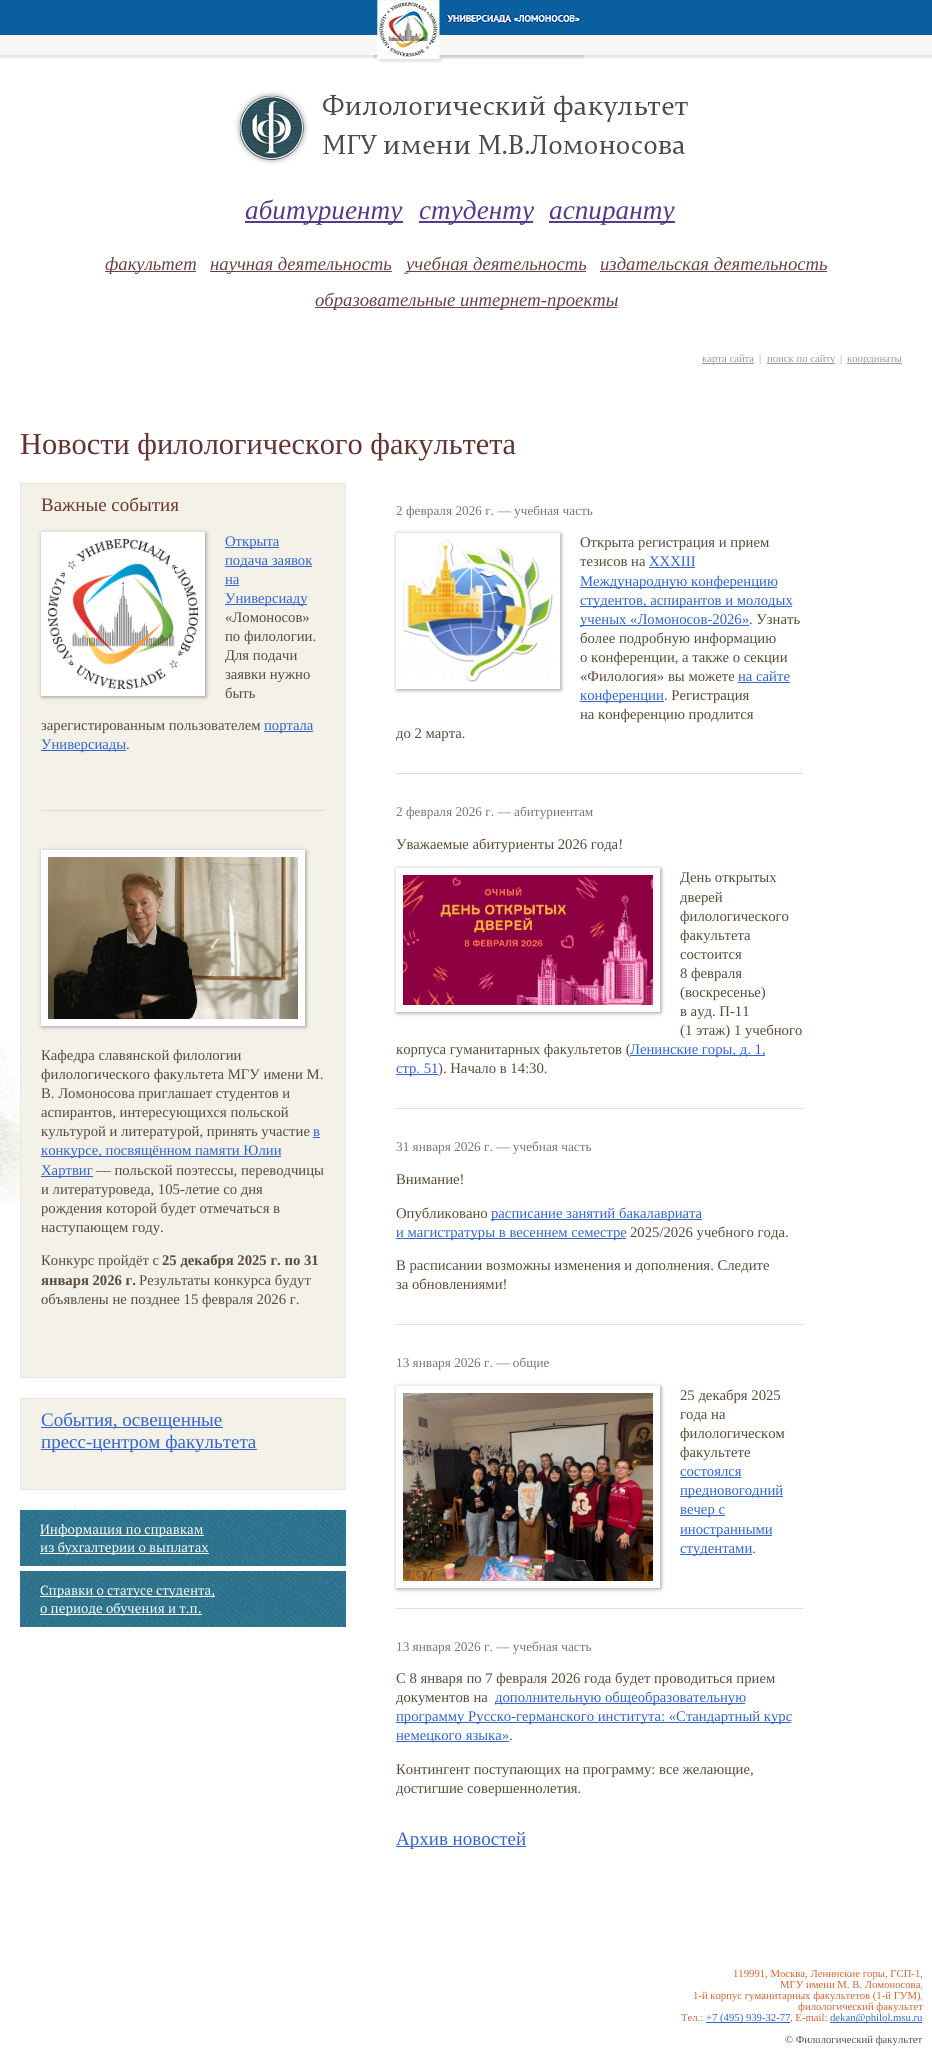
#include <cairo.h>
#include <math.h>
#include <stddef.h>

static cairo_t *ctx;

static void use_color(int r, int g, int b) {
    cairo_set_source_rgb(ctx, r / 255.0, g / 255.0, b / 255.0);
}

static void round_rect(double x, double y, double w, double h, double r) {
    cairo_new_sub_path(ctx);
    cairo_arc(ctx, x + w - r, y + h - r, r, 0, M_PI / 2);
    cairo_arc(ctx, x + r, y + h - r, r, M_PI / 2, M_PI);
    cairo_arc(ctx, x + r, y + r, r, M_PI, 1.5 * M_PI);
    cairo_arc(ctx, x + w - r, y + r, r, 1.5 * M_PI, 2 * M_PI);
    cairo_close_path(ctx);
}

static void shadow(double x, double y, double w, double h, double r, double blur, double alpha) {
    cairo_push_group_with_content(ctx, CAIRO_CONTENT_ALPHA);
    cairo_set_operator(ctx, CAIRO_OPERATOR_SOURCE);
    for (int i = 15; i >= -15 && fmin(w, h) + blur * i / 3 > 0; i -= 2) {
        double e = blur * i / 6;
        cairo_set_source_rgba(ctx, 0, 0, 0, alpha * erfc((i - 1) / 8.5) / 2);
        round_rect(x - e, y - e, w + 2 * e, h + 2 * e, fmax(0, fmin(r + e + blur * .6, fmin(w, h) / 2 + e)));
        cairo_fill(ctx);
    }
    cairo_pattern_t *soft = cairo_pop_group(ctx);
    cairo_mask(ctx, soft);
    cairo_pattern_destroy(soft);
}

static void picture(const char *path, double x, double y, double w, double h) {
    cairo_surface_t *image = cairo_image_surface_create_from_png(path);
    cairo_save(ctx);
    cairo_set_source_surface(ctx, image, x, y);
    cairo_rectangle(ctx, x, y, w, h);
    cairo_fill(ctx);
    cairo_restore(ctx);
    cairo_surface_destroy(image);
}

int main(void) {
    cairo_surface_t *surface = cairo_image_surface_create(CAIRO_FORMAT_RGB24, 932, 2049);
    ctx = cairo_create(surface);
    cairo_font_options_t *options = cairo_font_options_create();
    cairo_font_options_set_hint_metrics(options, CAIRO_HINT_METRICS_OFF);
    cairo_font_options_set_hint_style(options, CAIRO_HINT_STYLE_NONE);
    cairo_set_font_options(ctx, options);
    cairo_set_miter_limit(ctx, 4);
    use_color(255, 255, 255);
    cairo_paint(ctx);
    picture("img1.png", 0, 0, 932, 59);
    picture("img2.png", 373, 0, 211, 63);
    picture("img3.png", 235, 91, 453, 74);
    use_color(82, 60, 138);
    cairo_rectangle(ctx, 245, 221, 158, 2);
    cairo_fill(ctx);
    cairo_select_font_face(ctx, "Liberation Serif", CAIRO_FONT_SLANT_ITALIC, CAIRO_FONT_WEIGHT_NORMAL);
    cairo_set_font_size(ctx, 27.25);
    cairo_move_to(ctx, 245, 219);
    cairo_show_text(ctx, "абитуриенту");
    cairo_rectangle(ctx, 419, 221, 114, 2);
    cairo_fill(ctx);
    cairo_move_to(ctx, 419, 219);
    cairo_show_text(ctx, "студенту");
    cairo_rectangle(ctx, 549, 221, 126, 2);
    cairo_fill(ctx);
    cairo_move_to(ctx, 549, 219);
    cairo_show_text(ctx, "аспиранту");
    use_color(105, 68, 68);
    cairo_rectangle(ctx, 105, 271, 91, 1);
    cairo_fill(ctx);
    cairo_set_font_size(ctx, 18.7);
    cairo_move_to(ctx, 105, 270);
    cairo_show_text(ctx, "факультет");
    cairo_rectangle(ctx, 210, 271, 182, 1);
    cairo_fill(ctx);
    cairo_move_to(ctx, 210, 270);
    cairo_show_text(ctx, "научная деятельность");
    cairo_rectangle(ctx, 406, 271, 180, 1);
    cairo_fill(ctx);
    cairo_move_to(ctx, 406, 270);
    cairo_show_text(ctx, "учебная деятельность");
    cairo_move_to(ctx, 600, 270);
    cairo_show_text(ctx, "издательская деятельность");
    cairo_rectangle(ctx, 600, 271, 227, 1);
    cairo_fill(ctx);
    cairo_rectangle(ctx, 315, 307, 302, 1);
    cairo_fill(ctx);
    cairo_move_to(ctx, 315, 306);
    cairo_show_text(ctx, "образовательные интернет-проекты");
    use_color(153, 153, 153);
    cairo_rectangle(ctx, 702, 363, 52, 1);
    cairo_fill(ctx);
    cairo_select_font_face(ctx, "Liberation Serif", CAIRO_FONT_SLANT_NORMAL, CAIRO_FONT_WEIGHT_NORMAL);
    cairo_set_font_size(ctx, 10.7);
    cairo_move_to(ctx, 702, 362);
    cairo_show_text(ctx, "карта сайта");
    cairo_move_to(ctx, 759, 362);
    cairo_show_text(ctx, "|");
    cairo_rectangle(ctx, 767, 363, 68, 1);
    cairo_fill(ctx);
    cairo_move_to(ctx, 767, 362);
    cairo_show_text(ctx, "поиск по сайту");
    cairo_move_to(ctx, 840, 362);
    cairo_show_text(ctx, "|");
    cairo_rectangle(ctx, 847, 363, 55, 1);
    cairo_fill(ctx);
    cairo_move_to(ctx, 847, 362);
    cairo_show_text(ctx, "координаты");
    picture("img4.png", 0, 1040, 20, 164);
    cairo_set_font_size(ctx, 30.4);
    use_color(102, 51, 51);
    cairo_move_to(ctx, 20, 454);
    cairo_show_text(ctx, "Новости филологического факультета");
    use_color(243, 241, 232);
    cairo_rectangle(ctx, 20.5, 483.5, 325, 894);
    cairo_fill_preserve(ctx);
    use_color(233, 230, 215);
    cairo_set_line_width(ctx, 1);
    cairo_stroke(ctx);
    cairo_set_font_size(ctx, 19);
    use_color(105, 57, 43);
    cairo_move_to(ctx, 41, 511);
    cairo_show_text(ctx, "Важные события");
    use_color(153, 153, 153);
    shadow(42, 533, 164, 164, 0, 2, 1);
    cairo_rectangle(ctx, 44.5, 535.5, 157, 157);
    use_color(255, 255, 255);
    cairo_set_line_width(ctx, 7);
    cairo_stroke(ctx);
    picture("img5.png", 48, 539, 150, 150);
    use_color(51, 102, 204);
    cairo_rectangle(ctx, 225, 547, 54, 1);
    cairo_fill(ctx);
    cairo_set_font_size(ctx, 14.7);
    cairo_move_to(ctx, 225, 546);
    cairo_show_text(ctx, "Открыта");
    cairo_rectangle(ctx, 225, 566, 87, 1);
    cairo_fill(ctx);
    cairo_move_to(ctx, 225, 565);
    cairo_show_text(ctx, "подача заявок");
    cairo_move_to(ctx, 225, 584);
    cairo_show_text(ctx, "на");
    cairo_rectangle(ctx, 225, 585, 14, 1);
    cairo_fill(ctx);
    cairo_rectangle(ctx, 225, 604, 82, 1);
    cairo_fill(ctx);
    cairo_move_to(ctx, 225, 603);
    cairo_show_text(ctx, "Универсиаду");
    use_color(91, 75, 57);
    cairo_move_to(ctx, 225, 622);
    cairo_show_text(ctx, "«Ломоносов»");
    cairo_move_to(ctx, 225, 641);
    cairo_show_text(ctx, "по филологии.");
    cairo_move_to(ctx, 225, 660);
    cairo_show_text(ctx, "Для подачи");
    cairo_move_to(ctx, 225, 679);
    cairo_show_text(ctx, "заявки нужно");
    cairo_move_to(ctx, 225, 698);
    cairo_show_text(ctx, "быть");
    cairo_move_to(ctx, 41, 730);
    cairo_show_text(ctx, "зарегистированным пользователем");
    use_color(51, 102, 204);
    cairo_rectangle(ctx, 264, 731, 49, 1);
    cairo_fill(ctx);
    cairo_move_to(ctx, 264, 730);
    cairo_show_text(ctx, "портала");
    cairo_rectangle(ctx, 41, 750, 85, 1);
    cairo_fill(ctx);
    cairo_move_to(ctx, 41, 749);
    cairo_show_text(ctx, "Универсиады");
    use_color(91, 75, 57);
    cairo_move_to(ctx, 126, 749);
    cairo_show_text(ctx, ".");
    use_color(221, 221, 221);
    cairo_rectangle(ctx, 41, 810, 284, 1);
    cairo_fill(ctx);
    use_color(153, 153, 153);
    shadow(42, 851, 264, 176, 0, 2, 1);
    cairo_rectangle(ctx, 44.5, 853.5, 257, 169);
    use_color(255, 255, 255);
    cairo_stroke(ctx);
    picture("img6.png", 48, 857, 250, 162);
    use_color(91, 75, 57);
    cairo_move_to(ctx, 41, 1060);
    cairo_show_text(ctx, "Кафедра славянской филологии");
    cairo_move_to(ctx, 41, 1079);
    cairo_show_text(ctx, "филологического факультета МГУ имени М.");
    cairo_move_to(ctx, 41, 1098);
    cairo_show_text(ctx, "В. Ломоносова приглашает студентов и");
    cairo_move_to(ctx, 41, 1117);
    cairo_show_text(ctx, "аспирантов, интересующихся польской");
    cairo_move_to(ctx, 41, 1136);
    cairo_show_text(ctx, "культурой и литературой, принять участие");
    use_color(51, 102, 204);
    cairo_move_to(ctx, 313, 1136);
    cairo_show_text(ctx, "в");
    cairo_rectangle(ctx, 313, 1137, 7, 1);
    cairo_fill(ctx);
    cairo_rectangle(ctx, 41, 1156, 240, 1);
    cairo_fill(ctx);
    cairo_move_to(ctx, 41, 1155);
    cairo_show_text(ctx, "конкурсе, посвящённом памяти Юлии");
    cairo_rectangle(ctx, 41, 1176, 52, 1);
    cairo_fill(ctx);
    cairo_move_to(ctx, 41, 1175);
    cairo_show_text(ctx, "Хартвиг");
    use_color(91, 75, 57);
    cairo_move_to(ctx, 96, 1175);
    cairo_show_text(ctx, "— польской поэтессы, переводчицы");
    cairo_move_to(ctx, 41, 1194);
    cairo_show_text(ctx, "и литературоведа, 105-летие со дня");
    cairo_move_to(ctx, 41, 1213);
    cairo_show_text(ctx, "рождения которой будет отмечаться в");
    cairo_move_to(ctx, 41, 1232);
    cairo_show_text(ctx, "наступающем году.");
    cairo_move_to(ctx, 41, 1265);
    cairo_show_text(ctx, "Конкурс пройдёт с");
    cairo_select_font_face(ctx, "Liberation Serif", CAIRO_FONT_SLANT_NORMAL, CAIRO_FONT_WEIGHT_BOLD);
    cairo_move_to(ctx, 162, 1265);
    cairo_show_text(ctx, "25 декабря 2025 г. по 31");
    cairo_move_to(ctx, 41, 1285);
    cairo_show_text(ctx, "января 2026 г.");
    cairo_select_font_face(ctx, "Liberation Serif", CAIRO_FONT_SLANT_NORMAL, CAIRO_FONT_WEIGHT_NORMAL);
    cairo_move_to(ctx, 139, 1285);
    cairo_show_text(ctx, "Результаты конкурса будут");
    cairo_move_to(ctx, 41, 1304);
    cairo_show_text(ctx, "объявлены не позднее 15 февраля 2026 г.");
    use_color(243, 241, 232);
    cairo_rectangle(ctx, 20.5, 1398.5, 325, 91);
    cairo_fill_preserve(ctx);
    use_color(233, 230, 215);
    cairo_set_line_width(ctx, 1);
    cairo_stroke(ctx);
    use_color(51, 102, 204);
    cairo_rectangle(ctx, 41, 1427, 182, 1);
    cairo_fill(ctx);
    cairo_set_font_size(ctx, 19);
    cairo_move_to(ctx, 41, 1426);
    cairo_show_text(ctx, "События, освещенные");
    cairo_rectangle(ctx, 41, 1449, 216, 1);
    cairo_fill(ctx);
    cairo_move_to(ctx, 41, 1448);
    cairo_show_text(ctx, "пресс-центром факультета");
    picture("img7.png", 20, 1510, 326, 56);
    use_color(255, 255, 255);
    cairo_rectangle(ctx, 40, 1535, 164, 1);
    cairo_fill(ctx);
    cairo_select_font_face(ctx, "PT Serif", CAIRO_FONT_SLANT_NORMAL, CAIRO_FONT_WEIGHT_NORMAL);
    cairo_set_font_size(ctx, 13.3);
    cairo_move_to(ctx, 40, 1534);
    cairo_show_text(ctx, "Информация по справкам");
    cairo_rectangle(ctx, 40, 1553, 169, 1);
    cairo_fill(ctx);
    cairo_move_to(ctx, 40, 1552);
    cairo_show_text(ctx, "из бухгалтерии о выплатах");
    picture("img7.png", 20, 1571, 326, 56);
    cairo_rectangle(ctx, 40, 1596, 175, 1);
    cairo_fill(ctx);
    cairo_move_to(ctx, 40, 1595);
    cairo_show_text(ctx, "Справки о статусе студента,");
    cairo_rectangle(ctx, 40, 1614, 162, 1);
    cairo_fill(ctx);
    cairo_move_to(ctx, 40, 1613);
    cairo_show_text(ctx, "о периоде обучения и т.п.");
    cairo_select_font_face(ctx, "Liberation Serif", CAIRO_FONT_SLANT_NORMAL, CAIRO_FONT_WEIGHT_NORMAL);
    use_color(119, 119, 119);
    cairo_move_to(ctx, 396, 515);
    cairo_show_text(ctx, "2 февраля 2026 г. — учебная часть");
    cairo_save(ctx);
    cairo_set_fill_rule(ctx, CAIRO_FILL_RULE_EVEN_ODD);
    cairo_new_path(ctx);
    cairo_move_to(ctx, 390, 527);
    cairo_line_to(ctx, 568, 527);
    cairo_line_to(ctx, 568, 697);
    cairo_line_to(ctx, 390, 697);
    cairo_close_path(ctx);
    cairo_move_to(ctx, 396, 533);
    cairo_line_to(ctx, 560, 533);
    cairo_line_to(ctx, 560, 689);
    cairo_line_to(ctx, 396, 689);
    cairo_close_path(ctx);
    cairo_clip(ctx);
    use_color(153, 153, 153);
    shadow(397, 534, 164, 156, 0, 2, 1);
    cairo_restore(ctx);
    picture("img8.png", 403, 540, 150, 142);
    cairo_set_font_size(ctx, 14.7);
    use_color(91, 75, 57);
    cairo_move_to(ctx, 580, 547);
    cairo_show_text(ctx, "Открыта регистрация и прием");
    cairo_move_to(ctx, 580, 566);
    cairo_show_text(ctx, "тезисов на");
    use_color(51, 102, 204);
    cairo_move_to(ctx, 649, 566);
    cairo_show_text(ctx, "XXXIII");
    cairo_rectangle(ctx, 649, 567, 46, 1);
    cairo_fill(ctx);
    cairo_rectangle(ctx, 580, 587, 197, 1);
    cairo_fill(ctx);
    cairo_move_to(ctx, 580, 586);
    cairo_show_text(ctx, "Международную конференцию");
    cairo_rectangle(ctx, 580, 606, 212, 1);
    cairo_fill(ctx);
    cairo_move_to(ctx, 580, 605);
    cairo_show_text(ctx, "студентов, аспирантов и молодых");
    cairo_rectangle(ctx, 580, 625, 169, 1);
    cairo_fill(ctx);
    cairo_move_to(ctx, 580, 624);
    cairo_show_text(ctx, "ученых «Ломоносов-2026»");
    use_color(91, 75, 57);
    cairo_move_to(ctx, 749, 624);
    cairo_show_text(ctx, ". Узнать");
    cairo_move_to(ctx, 580, 643);
    cairo_show_text(ctx, "более подробную информацию");
    cairo_move_to(ctx, 580, 662);
    cairo_show_text(ctx, "о конференции, а также о секции");
    cairo_move_to(ctx, 580, 681);
    cairo_show_text(ctx, "«Филология» вы можете");
    use_color(51, 102, 204);
    cairo_move_to(ctx, 738, 681);
    cairo_show_text(ctx, "на сайте");
    cairo_rectangle(ctx, 738, 682, 52, 1);
    cairo_fill(ctx);
    cairo_rectangle(ctx, 580, 701, 84, 1);
    cairo_fill(ctx);
    cairo_move_to(ctx, 580, 700);
    cairo_show_text(ctx, "конференции");
    use_color(91, 75, 57);
    cairo_move_to(ctx, 664, 700);
    cairo_show_text(ctx, ". Регистрация");
    cairo_move_to(ctx, 580, 719);
    cairo_show_text(ctx, "на конференцию продлится");
    cairo_move_to(ctx, 396, 738);
    cairo_show_text(ctx, "до 2 марта.");
    use_color(221, 221, 221);
    cairo_rectangle(ctx, 396, 773, 407, 1);
    cairo_fill(ctx);
    cairo_set_font_size(ctx, 13.3);
    use_color(119, 119, 119);
    cairo_move_to(ctx, 396, 816);
    cairo_show_text(ctx, "2 февраля 2026 г. — абитуриентам");
    cairo_set_font_size(ctx, 14.7);
    use_color(91, 75, 57);
    cairo_move_to(ctx, 396, 849);
    cairo_show_text(ctx, "Уважаемые абитуриенты 2026 года!");
    cairo_save(ctx);
    cairo_set_fill_rule(ctx, CAIRO_FILL_RULE_EVEN_ODD);
    cairo_new_path(ctx);
    cairo_move_to(ctx, 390, 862);
    cairo_line_to(ctx, 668, 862);
    cairo_line_to(ctx, 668, 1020);
    cairo_line_to(ctx, 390, 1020);
    cairo_close_path(ctx);
    cairo_move_to(ctx, 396, 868);
    cairo_line_to(ctx, 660, 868);
    cairo_line_to(ctx, 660, 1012);
    cairo_line_to(ctx, 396, 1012);
    cairo_close_path(ctx);
    cairo_clip(ctx);
    use_color(153, 153, 153);
    shadow(397, 869, 264, 144, 0, 2, 1);
    cairo_restore(ctx);
    picture("img9.png", 403, 875, 250, 130);
    cairo_move_to(ctx, 680, 882);
    cairo_show_text(ctx, "День открытых");
    cairo_move_to(ctx, 680, 902);
    cairo_show_text(ctx, "дверей");
    cairo_move_to(ctx, 680, 921);
    cairo_show_text(ctx, "филологического");
    cairo_move_to(ctx, 680, 940);
    cairo_show_text(ctx, "факультета");
    cairo_move_to(ctx, 680, 959);
    cairo_show_text(ctx, "состоится");
    cairo_move_to(ctx, 680, 978);
    cairo_show_text(ctx, "8 февраля");
    cairo_move_to(ctx, 680, 997);
    cairo_show_text(ctx, "(воскресенье)");
    cairo_move_to(ctx, 680, 1016);
    cairo_show_text(ctx, "в ауд. П-11");
    cairo_move_to(ctx, 680, 1035);
    cairo_show_text(ctx, "(1 этаж) 1 учебного");
    cairo_move_to(ctx, 396, 1054);
    cairo_show_text(ctx, "корпуса гуманитарных факультетов (");
    use_color(51, 102, 204);
    cairo_rectangle(ctx, 630, 1055, 135, 1);
    cairo_fill(ctx);
    cairo_move_to(ctx, 630, 1054);
    cairo_show_text(ctx, "Ленинские горы, д. 1,");
    cairo_rectangle(ctx, 396, 1074, 42, 1);
    cairo_fill(ctx);
    cairo_move_to(ctx, 396, 1073);
    cairo_show_text(ctx, "cтр. 51");
    use_color(91, 75, 57);
    cairo_move_to(ctx, 438, 1073);
    cairo_show_text(ctx, "). Начало в 14:30.");
    use_color(221, 221, 221);
    cairo_rectangle(ctx, 396, 1108, 407, 1);
    cairo_fill(ctx);
    cairo_set_font_size(ctx, 13.3);
    use_color(119, 119, 119);
    cairo_move_to(ctx, 396, 1151);
    cairo_show_text(ctx, "31 января 2026 г. — учебная часть");
    cairo_set_font_size(ctx, 14.7);
    use_color(91, 75, 57);
    cairo_move_to(ctx, 396, 1184);
    cairo_show_text(ctx, "Внимание!");
    cairo_move_to(ctx, 396, 1218);
    cairo_show_text(ctx, "Опубликовано");
    use_color(51, 102, 204);
    cairo_rectangle(ctx, 491, 1219, 211, 1);
    cairo_fill(ctx);
    cairo_move_to(ctx, 491, 1218);
    cairo_show_text(ctx, "расписание занятий бакалавриата");
    cairo_rectangle(ctx, 396, 1238, 230, 1);
    cairo_fill(ctx);
    cairo_move_to(ctx, 396, 1237);
    cairo_show_text(ctx, "и магистратуры в весеннем семестре");
    use_color(91, 75, 57);
    cairo_move_to(ctx, 630, 1237);
    cairo_show_text(ctx, "2025/2026 учебного года.");
    cairo_move_to(ctx, 396, 1270);
    cairo_show_text(ctx, "В расписании возможны изменения и дополнения. Следите");
    cairo_move_to(ctx, 396, 1289);
    cairo_show_text(ctx, "за обновлениями!");
    use_color(221, 221, 221);
    cairo_rectangle(ctx, 396, 1324, 407, 1);
    cairo_fill(ctx);
    cairo_set_font_size(ctx, 13.3);
    use_color(119, 119, 119);
    cairo_move_to(ctx, 396, 1367);
    cairo_show_text(ctx, "13 января 2026 г. — общие");
    cairo_save(ctx);
    cairo_set_fill_rule(ctx, CAIRO_FILL_RULE_EVEN_ODD);
    cairo_new_path(ctx);
    cairo_move_to(ctx, 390, 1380);
    cairo_line_to(ctx, 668, 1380);
    cairo_line_to(ctx, 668, 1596);
    cairo_line_to(ctx, 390, 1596);
    cairo_close_path(ctx);
    cairo_move_to(ctx, 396, 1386);
    cairo_line_to(ctx, 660, 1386);
    cairo_line_to(ctx, 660, 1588);
    cairo_line_to(ctx, 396, 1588);
    cairo_close_path(ctx);
    cairo_clip(ctx);
    use_color(153, 153, 153);
    shadow(397, 1387, 264, 202, 0, 2, 1);
    cairo_restore(ctx);
    picture("img10.png", 403, 1393, 250, 188);
    cairo_set_font_size(ctx, 14.7);
    use_color(91, 75, 57);
    cairo_move_to(ctx, 680, 1400);
    cairo_show_text(ctx, "25 декабря 2025");
    cairo_move_to(ctx, 680, 1419);
    cairo_show_text(ctx, "года на");
    cairo_move_to(ctx, 680, 1438);
    cairo_show_text(ctx, "филологическом");
    cairo_move_to(ctx, 680, 1457);
    cairo_show_text(ctx, "факультете");
    use_color(51, 102, 204);
    cairo_move_to(ctx, 680, 1476);
    cairo_show_text(ctx, "состоялся");
    cairo_rectangle(ctx, 680, 1477, 61, 1);
    cairo_fill(ctx);
    cairo_rectangle(ctx, 680, 1496, 103, 1);
    cairo_fill(ctx);
    cairo_move_to(ctx, 680, 1495);
    cairo_show_text(ctx, "предновогодний");
    cairo_rectangle(ctx, 680, 1515, 45, 1);
    cairo_fill(ctx);
    cairo_move_to(ctx, 680, 1514);
    cairo_show_text(ctx, "вечер с");
    cairo_rectangle(ctx, 680, 1535, 92, 1);
    cairo_fill(ctx);
    cairo_move_to(ctx, 680, 1534);
    cairo_show_text(ctx, "иностранными");
    cairo_rectangle(ctx, 680, 1554, 72, 1);
    cairo_fill(ctx);
    cairo_move_to(ctx, 680, 1553);
    cairo_show_text(ctx, "студентами");
    use_color(91, 75, 57);
    cairo_move_to(ctx, 752, 1553);
    cairo_show_text(ctx, ".");
    use_color(221, 221, 221);
    cairo_rectangle(ctx, 396, 1608, 407, 1);
    cairo_fill(ctx);
    cairo_set_font_size(ctx, 13.3);
    use_color(119, 119, 119);
    cairo_move_to(ctx, 396, 1651);
    cairo_show_text(ctx, "13 января 2026 г. — учебная часть");
    cairo_set_font_size(ctx, 14.7);
    use_color(91, 75, 57);
    cairo_move_to(ctx, 396, 1683);
    cairo_show_text(ctx, "С 8 января по 7 февраля 2026 года будет проводиться прием");
    cairo_move_to(ctx, 396, 1702);
    cairo_show_text(ctx, "документов на");
    use_color(51, 102, 204);
    cairo_rectangle(ctx, 495, 1703, 250, 1);
    cairo_fill(ctx);
    cairo_move_to(ctx, 495, 1702);
    cairo_show_text(ctx, "дополнительную общеобразовательную");
    cairo_rectangle(ctx, 396, 1722, 395, 1);
    cairo_fill(ctx);
    cairo_move_to(ctx, 396, 1721);
    cairo_show_text(ctx, "программу Русско-германского института: «Стандартный курс");
    cairo_rectangle(ctx, 396, 1741, 113, 1);
    cairo_fill(ctx);
    cairo_move_to(ctx, 396, 1740);
    cairo_show_text(ctx, "немецкого языка»");
    use_color(91, 75, 57);
    cairo_move_to(ctx, 509, 1740);
    cairo_show_text(ctx, ".");
    cairo_move_to(ctx, 396, 1774);
    cairo_show_text(ctx, "Контингент поступающих на программу: все желающие,");
    cairo_move_to(ctx, 396, 1793);
    cairo_show_text(ctx, "достигшие совершеннолетия.");
    use_color(51, 102, 204);
    cairo_rectangle(ctx, 396, 1846, 130, 1);
    cairo_fill(ctx);
    cairo_set_font_size(ctx, 19);
    cairo_move_to(ctx, 396, 1845);
    cairo_show_text(ctx, "Архив новостей");
    cairo_set_font_size(ctx, 10.7);
    use_color(204, 102, 51);
    cairo_move_to(ctx, 733, 1977);
    cairo_show_text(ctx, "119991, Москва, Ленинские горы, ГСП-1,");
    cairo_move_to(ctx, 780, 1988);
    cairo_show_text(ctx, "МГУ имени М. В. Ломоносова,");
    cairo_move_to(ctx, 693, 1999);
    cairo_show_text(ctx, "1-й корпус гуманитарных факультетов (1-й ГУМ),");
    cairo_move_to(ctx, 798, 2010);
    cairo_show_text(ctx, "филологический факультет");
    cairo_move_to(ctx, 681, 2021);
    cairo_show_text(ctx, "Тел.:");
    use_color(51, 102, 204);
    cairo_rectangle(ctx, 706, 2022, 84, 1);
    cairo_fill(ctx);
    cairo_move_to(ctx, 706, 2021);
    cairo_show_text(ctx, "+7 (495) 939-32-77");
    use_color(204, 102, 51);
    cairo_move_to(ctx, 790, 2021);
    cairo_show_text(ctx, ", E-mail:");
    use_color(51, 102, 204);
    cairo_rectangle(ctx, 830, 2022, 92, 1);
    cairo_fill(ctx);
    cairo_move_to(ctx, 830, 2021);
    cairo_show_text(ctx, "dekan@philol.msu.ru");
    use_color(85, 85, 85);
    cairo_move_to(ctx, 785, 2043);
    cairo_show_text(ctx, "© Филологический факультет");
    cairo_surface_write_to_png(surface, "result.png");
    cairo_font_options_destroy(options);
    cairo_destroy(ctx);
    cairo_surface_destroy(surface);
    return 0;
}
